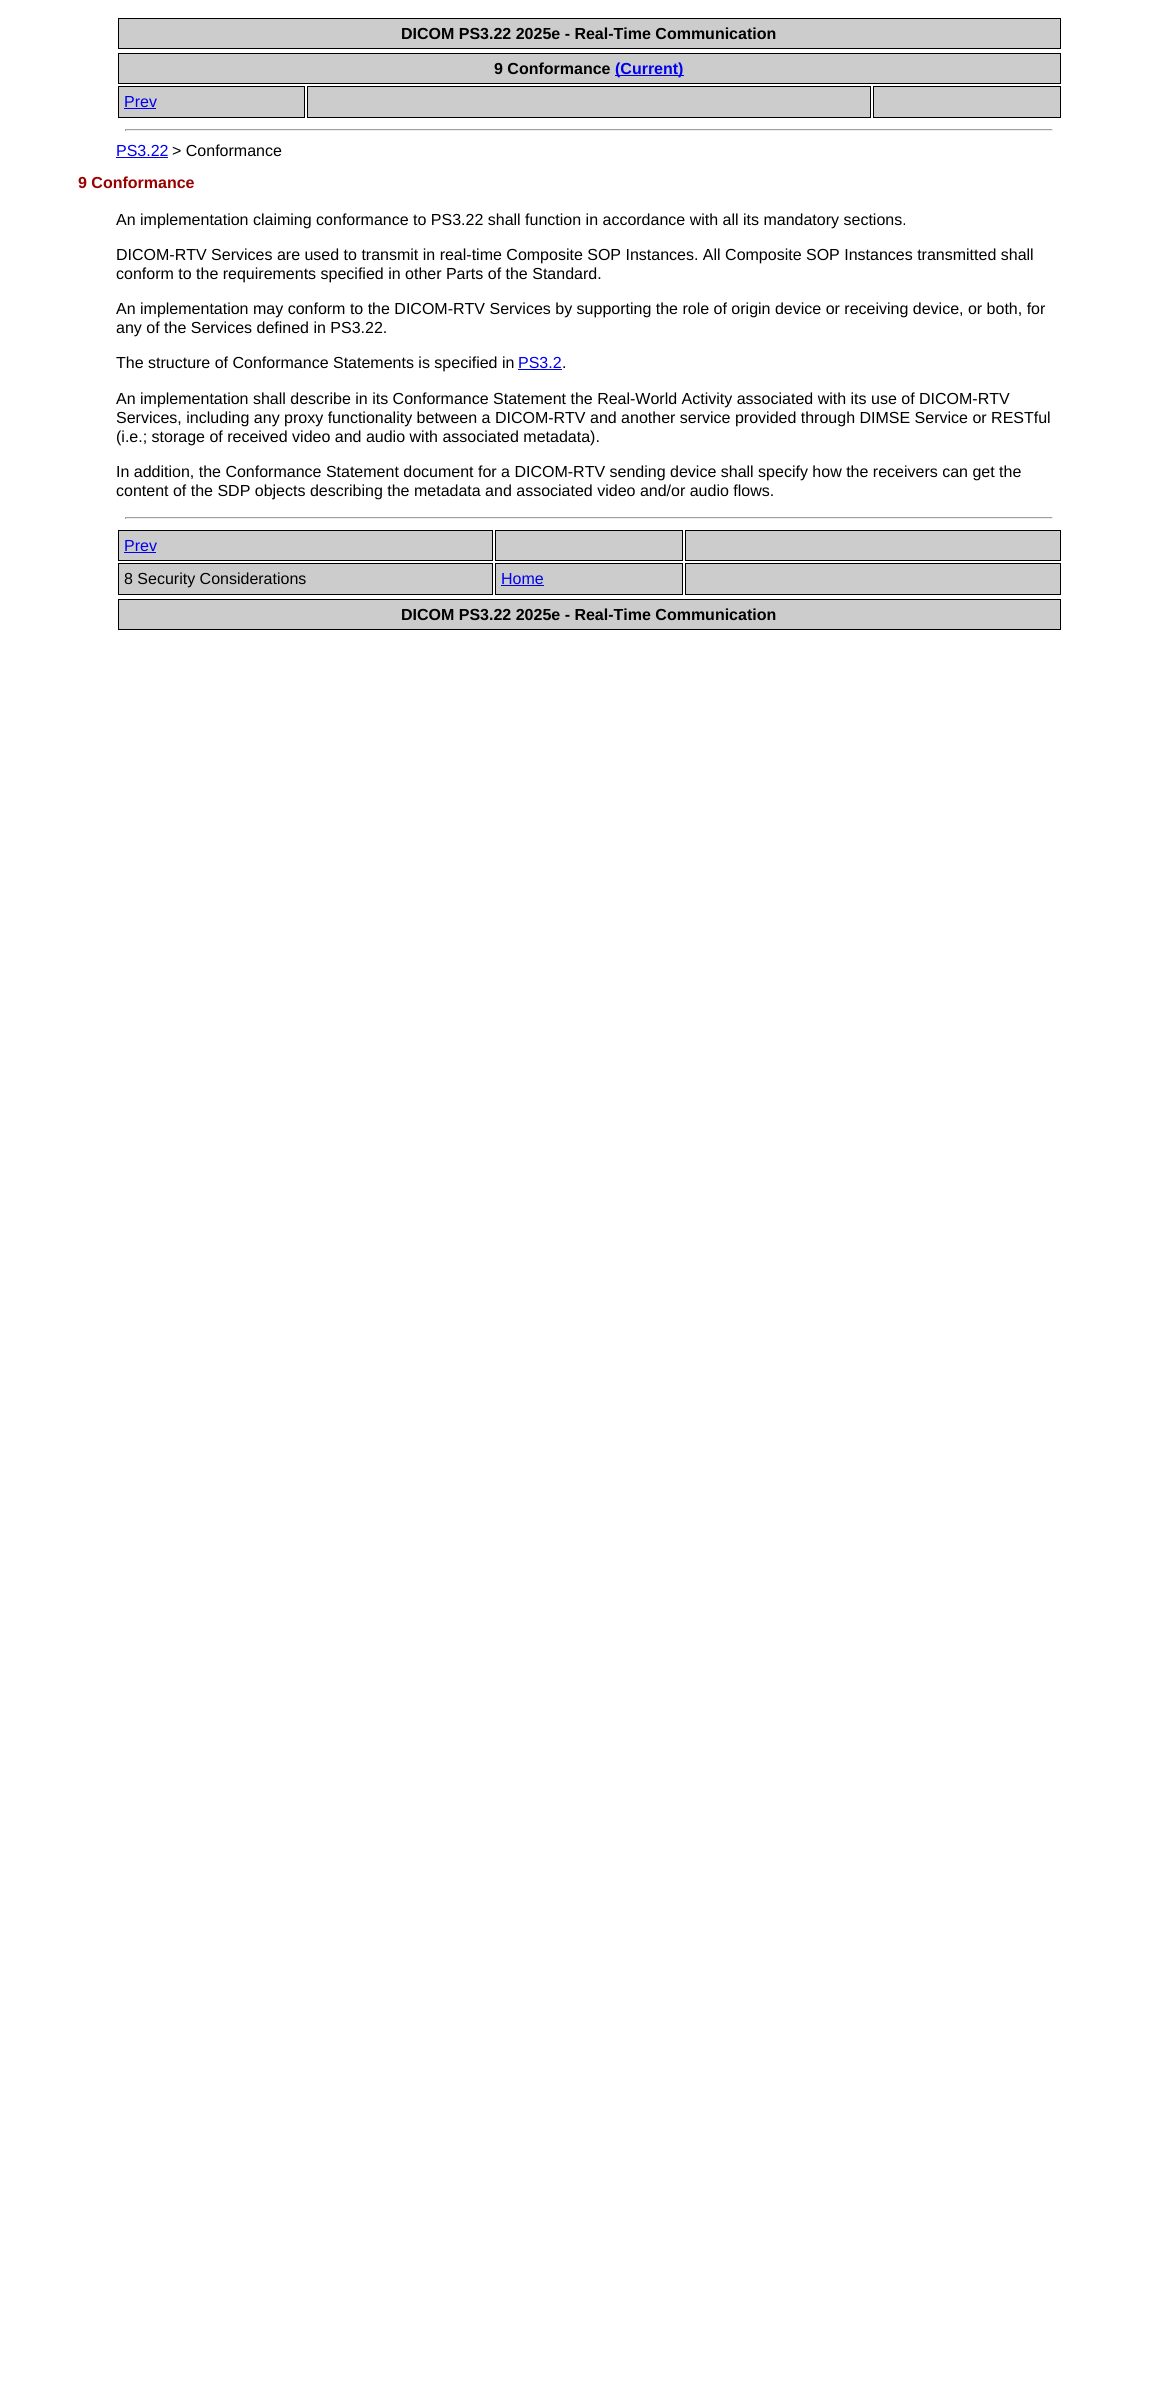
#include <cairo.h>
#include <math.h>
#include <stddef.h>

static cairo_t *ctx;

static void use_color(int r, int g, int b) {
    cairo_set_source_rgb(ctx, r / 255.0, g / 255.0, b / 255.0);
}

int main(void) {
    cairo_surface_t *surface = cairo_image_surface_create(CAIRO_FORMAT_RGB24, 1155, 2407);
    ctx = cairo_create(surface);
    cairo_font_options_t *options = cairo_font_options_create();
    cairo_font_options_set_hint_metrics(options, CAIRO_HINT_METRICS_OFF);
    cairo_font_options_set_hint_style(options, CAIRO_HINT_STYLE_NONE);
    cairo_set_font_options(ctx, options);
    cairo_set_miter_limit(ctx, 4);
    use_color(255, 255, 255);
    cairo_paint(ctx);
    use_color(204, 204, 204);
    cairo_rectangle(ctx, 118.5, 18.5, 942, 30);
    cairo_fill_preserve(ctx);
    use_color(0, 0, 0);
    cairo_set_line_width(ctx, 1);
    cairo_stroke(ctx);
    cairo_select_font_face(ctx, "Liberation Sans", CAIRO_FONT_SLANT_NORMAL, CAIRO_FONT_WEIGHT_BOLD);
    cairo_set_font_size(ctx, 16);
    cairo_move_to(ctx, 401, 39);
    cairo_show_text(ctx, "DICOM PS3.22 2025e - Real-Time Communication");
    use_color(204, 204, 204);
    cairo_rectangle(ctx, 118.5, 53.5, 942, 30);
    cairo_fill_preserve(ctx);
    use_color(0, 0, 0);
    cairo_stroke(ctx);
    cairo_move_to(ctx, 494, 74);
    cairo_show_text(ctx, "9 Conformance");
    use_color(0, 0, 238);
    cairo_rectangle(ctx, 615, 75, 69, 1);
    cairo_fill(ctx);
    cairo_move_to(ctx, 615, 74);
    cairo_show_text(ctx, "(Current)");
    use_color(204, 204, 204);
    cairo_rectangle(ctx, 118.5, 86.5, 186, 31);
    cairo_fill_preserve(ctx);
    use_color(0, 0, 0);
    cairo_stroke(ctx);
    cairo_select_font_face(ctx, "Liberation Sans", CAIRO_FONT_SLANT_NORMAL, CAIRO_FONT_WEIGHT_NORMAL);
    use_color(0, 0, 238);
    cairo_move_to(ctx, 124, 107);
    cairo_show_text(ctx, "Prev");
    cairo_rectangle(ctx, 124, 108, 32, 1);
    cairo_fill(ctx);
    use_color(204, 204, 204);
    cairo_rectangle(ctx, 307.5, 86.5, 563, 31);
    cairo_fill_preserve(ctx);
    use_color(0, 0, 0);
    cairo_stroke(ctx);
    use_color(204, 204, 204);
    cairo_rectangle(ctx, 873.5, 86.5, 187, 31);
    cairo_fill_preserve(ctx);
    use_color(0, 0, 0);
    cairo_stroke(ctx);
    use_color(159, 159, 159);
    cairo_rectangle(ctx, 125, 129, 928, 1);
    cairo_fill(ctx);
    use_color(238, 238, 238);
    cairo_rectangle(ctx, 1052, 129, 1, 2);
    cairo_fill(ctx);
    cairo_rectangle(ctx, 125, 130, 928, 1);
    cairo_fill(ctx);
    use_color(159, 159, 159);
    cairo_rectangle(ctx, 125, 129, 1, 2);
    cairo_fill(ctx);
    use_color(0, 0, 238);
    cairo_move_to(ctx, 116, 156);
    cairo_show_text(ctx, "PS3.22");
    cairo_rectangle(ctx, 116, 157, 52, 1);
    cairo_fill(ctx);
    use_color(0, 0, 0);
    cairo_move_to(ctx, 172, 156);
    cairo_show_text(ctx, "> Conformance");
    cairo_select_font_face(ctx, "Liberation Sans", CAIRO_FONT_SLANT_NORMAL, CAIRO_FONT_WEIGHT_BOLD);
    use_color(153, 0, 0);
    cairo_move_to(ctx, 78, 188);
    cairo_show_text(ctx, "9 Conformance");
    cairo_select_font_face(ctx, "Liberation Sans", CAIRO_FONT_SLANT_NORMAL, CAIRO_FONT_WEIGHT_NORMAL);
    use_color(0, 0, 0);
    cairo_move_to(ctx, 116, 225);
    cairo_show_text(ctx, "An implementation claiming conformance to PS3.22 shall function in accordance with all its mandatory sections.");
    cairo_move_to(ctx, 116, 260);
    cairo_show_text(ctx, "DICOM-RTV Services are used to transmit in real-time Composite SOP Instances. All Composite SOP Instances transmitted shall");
    cairo_move_to(ctx, 116, 279);
    cairo_show_text(ctx, "conform to the requirements specified in other Parts of the Standard.");
    cairo_move_to(ctx, 116, 314);
    cairo_show_text(ctx, "An implementation may conform to the DICOM-RTV Services by supporting the role of origin device or receiving device, or both, for");
    cairo_move_to(ctx, 116, 333);
    cairo_show_text(ctx, "any of the Services defined in PS3.22.");
    cairo_move_to(ctx, 116, 368);
    cairo_show_text(ctx, "The structure of Conformance Statements is specified in");
    use_color(0, 0, 238);
    cairo_move_to(ctx, 518, 368);
    cairo_show_text(ctx, "PS3.2");
    cairo_rectangle(ctx, 518, 369, 44, 1);
    cairo_fill(ctx);
    use_color(0, 0, 0);
    cairo_move_to(ctx, 562, 368);
    cairo_show_text(ctx, ".");
    cairo_move_to(ctx, 116, 404);
    cairo_show_text(ctx, "An implementation shall describe in its Conformance Statement the Real-World Activity associated with its use of DICOM-RTV");
    cairo_move_to(ctx, 116, 423);
    cairo_show_text(ctx, "Services, including any proxy functionality between a DICOM-RTV and another service provided through DIMSE Service or RESTful");
    cairo_move_to(ctx, 116, 442);
    cairo_show_text(ctx, "(i.e.; storage of received video and audio with associated metadata).");
    cairo_move_to(ctx, 116, 477);
    cairo_show_text(ctx, "In addition, the Conformance Statement document for a DICOM-RTV sending device shall specify how the receivers can get the");
    cairo_move_to(ctx, 116, 496);
    cairo_show_text(ctx, "content of the SDP objects describing the metadata and associated video and/or audio flows.");
    use_color(159, 159, 159);
    cairo_rectangle(ctx, 125, 517, 928, 1);
    cairo_fill(ctx);
    use_color(238, 238, 238);
    cairo_rectangle(ctx, 1052, 517, 1, 2);
    cairo_fill(ctx);
    cairo_rectangle(ctx, 125, 518, 928, 1);
    cairo_fill(ctx);
    use_color(159, 159, 159);
    cairo_rectangle(ctx, 125, 517, 1, 2);
    cairo_fill(ctx);
    use_color(204, 204, 204);
    cairo_rectangle(ctx, 118.5, 530.5, 374, 30);
    cairo_fill_preserve(ctx);
    use_color(0, 0, 0);
    cairo_stroke(ctx);
    use_color(0, 0, 238);
    cairo_move_to(ctx, 124, 551);
    cairo_show_text(ctx, "Prev");
    cairo_rectangle(ctx, 124, 552, 32, 1);
    cairo_fill(ctx);
    use_color(204, 204, 204);
    cairo_rectangle(ctx, 495.5, 530.5, 187, 30);
    cairo_fill_preserve(ctx);
    use_color(0, 0, 0);
    cairo_stroke(ctx);
    use_color(204, 204, 204);
    cairo_rectangle(ctx, 685.5, 530.5, 375, 30);
    cairo_fill_preserve(ctx);
    use_color(0, 0, 0);
    cairo_stroke(ctx);
    use_color(204, 204, 204);
    cairo_rectangle(ctx, 118.5, 563.5, 374, 31);
    cairo_fill_preserve(ctx);
    use_color(0, 0, 0);
    cairo_stroke(ctx);
    cairo_move_to(ctx, 124, 584);
    cairo_show_text(ctx, "8 Security Considerations");
    use_color(204, 204, 204);
    cairo_rectangle(ctx, 495.5, 563.5, 187, 31);
    cairo_fill_preserve(ctx);
    use_color(0, 0, 0);
    cairo_stroke(ctx);
    use_color(0, 0, 238);
    cairo_move_to(ctx, 501, 584);
    cairo_show_text(ctx, "Home");
    cairo_rectangle(ctx, 501, 585, 43, 1);
    cairo_fill(ctx);
    use_color(204, 204, 204);
    cairo_rectangle(ctx, 685.5, 563.5, 375, 31);
    cairo_fill_preserve(ctx);
    use_color(0, 0, 0);
    cairo_stroke(ctx);
    use_color(204, 204, 204);
    cairo_rectangle(ctx, 118.5, 599.5, 942, 30);
    cairo_fill_preserve(ctx);
    use_color(0, 0, 0);
    cairo_stroke(ctx);
    cairo_select_font_face(ctx, "Liberation Sans", CAIRO_FONT_SLANT_NORMAL, CAIRO_FONT_WEIGHT_BOLD);
    cairo_move_to(ctx, 401, 620);
    cairo_show_text(ctx, "DICOM PS3.22 2025e - Real-Time Communication");
    cairo_surface_write_to_png(surface, "result.png");
    cairo_font_options_destroy(options);
    cairo_destroy(ctx);
    cairo_surface_destroy(surface);
    return 0;
}
